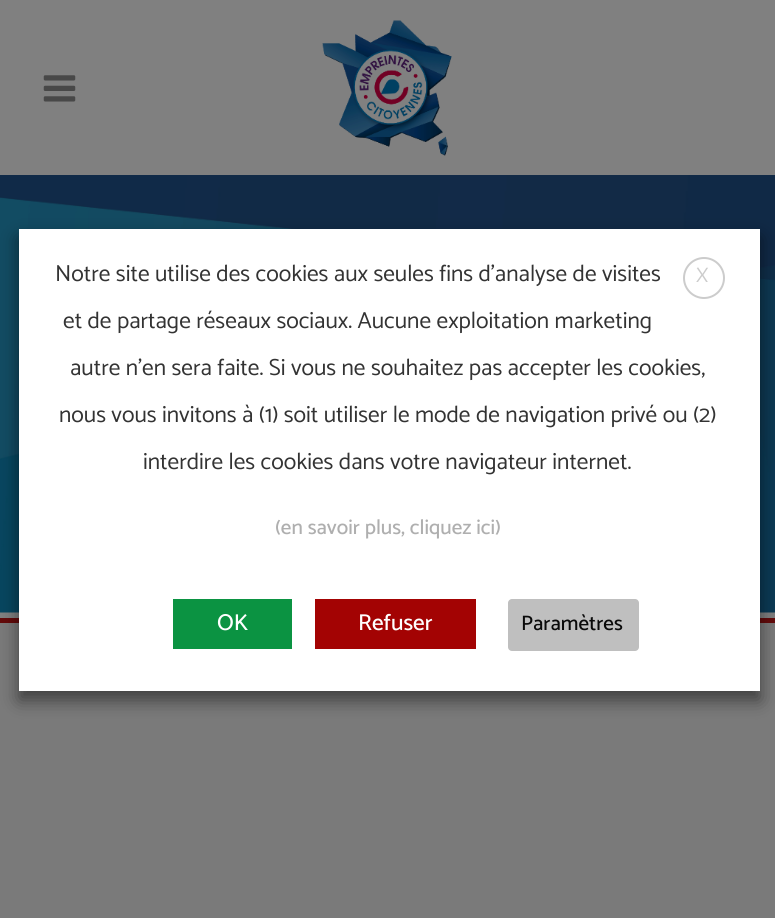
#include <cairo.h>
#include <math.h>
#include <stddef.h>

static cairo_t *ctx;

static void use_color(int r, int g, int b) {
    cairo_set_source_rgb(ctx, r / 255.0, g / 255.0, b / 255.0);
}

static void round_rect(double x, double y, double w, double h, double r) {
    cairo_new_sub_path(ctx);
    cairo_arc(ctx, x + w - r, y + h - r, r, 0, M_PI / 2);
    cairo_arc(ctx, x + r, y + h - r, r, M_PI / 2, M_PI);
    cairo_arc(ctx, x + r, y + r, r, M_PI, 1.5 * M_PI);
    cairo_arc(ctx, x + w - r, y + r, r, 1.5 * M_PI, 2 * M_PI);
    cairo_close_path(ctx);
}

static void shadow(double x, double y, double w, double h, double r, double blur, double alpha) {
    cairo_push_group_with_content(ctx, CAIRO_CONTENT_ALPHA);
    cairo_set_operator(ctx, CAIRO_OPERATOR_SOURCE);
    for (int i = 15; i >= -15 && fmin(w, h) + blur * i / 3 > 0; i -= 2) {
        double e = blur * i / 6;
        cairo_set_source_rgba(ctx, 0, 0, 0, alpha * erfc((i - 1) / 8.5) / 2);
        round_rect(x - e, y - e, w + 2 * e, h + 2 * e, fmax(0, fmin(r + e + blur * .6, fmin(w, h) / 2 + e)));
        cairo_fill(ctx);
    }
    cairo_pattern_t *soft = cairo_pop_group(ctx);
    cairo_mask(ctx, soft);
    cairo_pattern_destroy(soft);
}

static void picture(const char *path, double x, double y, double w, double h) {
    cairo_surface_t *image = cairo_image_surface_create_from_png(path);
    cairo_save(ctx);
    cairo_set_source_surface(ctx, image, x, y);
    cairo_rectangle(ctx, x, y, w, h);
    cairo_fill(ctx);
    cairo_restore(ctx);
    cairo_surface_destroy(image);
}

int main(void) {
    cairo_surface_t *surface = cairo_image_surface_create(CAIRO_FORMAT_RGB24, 775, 918);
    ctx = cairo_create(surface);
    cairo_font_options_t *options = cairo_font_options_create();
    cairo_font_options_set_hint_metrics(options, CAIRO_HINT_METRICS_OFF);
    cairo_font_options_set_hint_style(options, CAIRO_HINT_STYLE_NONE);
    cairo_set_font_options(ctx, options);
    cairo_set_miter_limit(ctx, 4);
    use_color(122, 122, 122);
    cairo_paint(ctx);
    use_color(128, 128, 128);
    cairo_rectangle(ctx, 0, 0, 775, 175);
    cairo_fill(ctx);
    picture("img1.png", 43, 75, 33, 27);
    picture("img2.png", 322, 20, 130, 136);
    cairo_rectangle(ctx, 0, 612, 775, 6);
    cairo_fill(ctx);
    use_color(100, 10, 10);
    cairo_rectangle(ctx, 0, 618, 775, 5);
    cairo_fill(ctx);
    picture("img3.png", 0, 175, 775, 438);
    use_color(0, 0, 0);
    shadow(19, 238, 741, 462, 0, 9, 0.5);
    use_color(255, 255, 255);
    cairo_rectangle(ctx, 19, 229, 741, 462);
    cairo_fill(ctx);
    cairo_select_font_face(ctx, "Catamaran", CAIRO_FONT_SLANT_NORMAL, CAIRO_FONT_WEIGHT_NORMAL);
    cairo_set_font_size(ctx, 23.3);
    use_color(51, 51, 51);
    cairo_move_to(ctx, 55, 281);
    cairo_show_text(ctx, "Notre site utilise des cookies aux seules fins d'analyse de visites");
    cairo_move_to(ctx, 63, 328);
    cairo_show_text(ctx, "et de partage réseaux sociaux. Aucune exploitation marketing");
    cairo_move_to(ctx, 70, 375);
    cairo_show_text(ctx, "autre n'en sera faite. Si vous ne souhaitez pas accepter les cookies,");
    cairo_move_to(ctx, 59, 422);
    cairo_show_text(ctx, "nous vous invitons à (1) soit utiliser le mode de navigation privé ou (2)");
    cairo_move_to(ctx, 143, 469);
    cairo_show_text(ctx, "interdire les cookies dans votre navigateur internet.");
    cairo_select_font_face(ctx, "Catamaran Medium", CAIRO_FONT_SLANT_NORMAL, CAIRO_FONT_WEIGHT_NORMAL);
    cairo_set_font_size(ctx, 21);
    use_color(175, 175, 175);
    cairo_move_to(ctx, 275, 534);
    cairo_show_text(ctx, "(en savoir plus, cliquez ici)");
    use_color(11, 147, 66);
    cairo_rectangle(ctx, 173, 599, 119, 50);
    cairo_fill(ctx);
    cairo_set_font_size(ctx, 23);
    use_color(255, 255, 255);
    cairo_move_to(ctx, 217, 630);
    cairo_show_text(ctx, "OK");
    use_color(163, 3, 3);
    cairo_rectangle(ctx, 315, 599, 161, 50);
    cairo_fill(ctx);
    use_color(255, 255, 255);
    cairo_move_to(ctx, 358, 630);
    cairo_show_text(ctx, "Refuser");
    use_color(191, 191, 191);
    round_rect(508, 599, 131, 52, 4);
    cairo_fill(ctx);
    cairo_set_font_size(ctx, 21);
    use_color(10, 10, 10);
    cairo_move_to(ctx, 521, 630);
    cairo_show_text(ctx, "Paramètres");
    cairo_new_path(ctx);
    cairo_arc(ctx, 704, 278, 20, 0, 2 * M_PI);
    use_color(204, 204, 204);
    cairo_stroke(ctx);
    cairo_select_font_face(ctx, "Catamaran", CAIRO_FONT_SLANT_NORMAL, CAIRO_FONT_WEIGHT_NORMAL);
    cairo_move_to(ctx, 696, 282);
    cairo_show_text(ctx, "X");
    cairo_surface_write_to_png(surface, "result.png");
    cairo_font_options_destroy(options);
    cairo_destroy(ctx);
    cairo_surface_destroy(surface);
    return 0;
}
